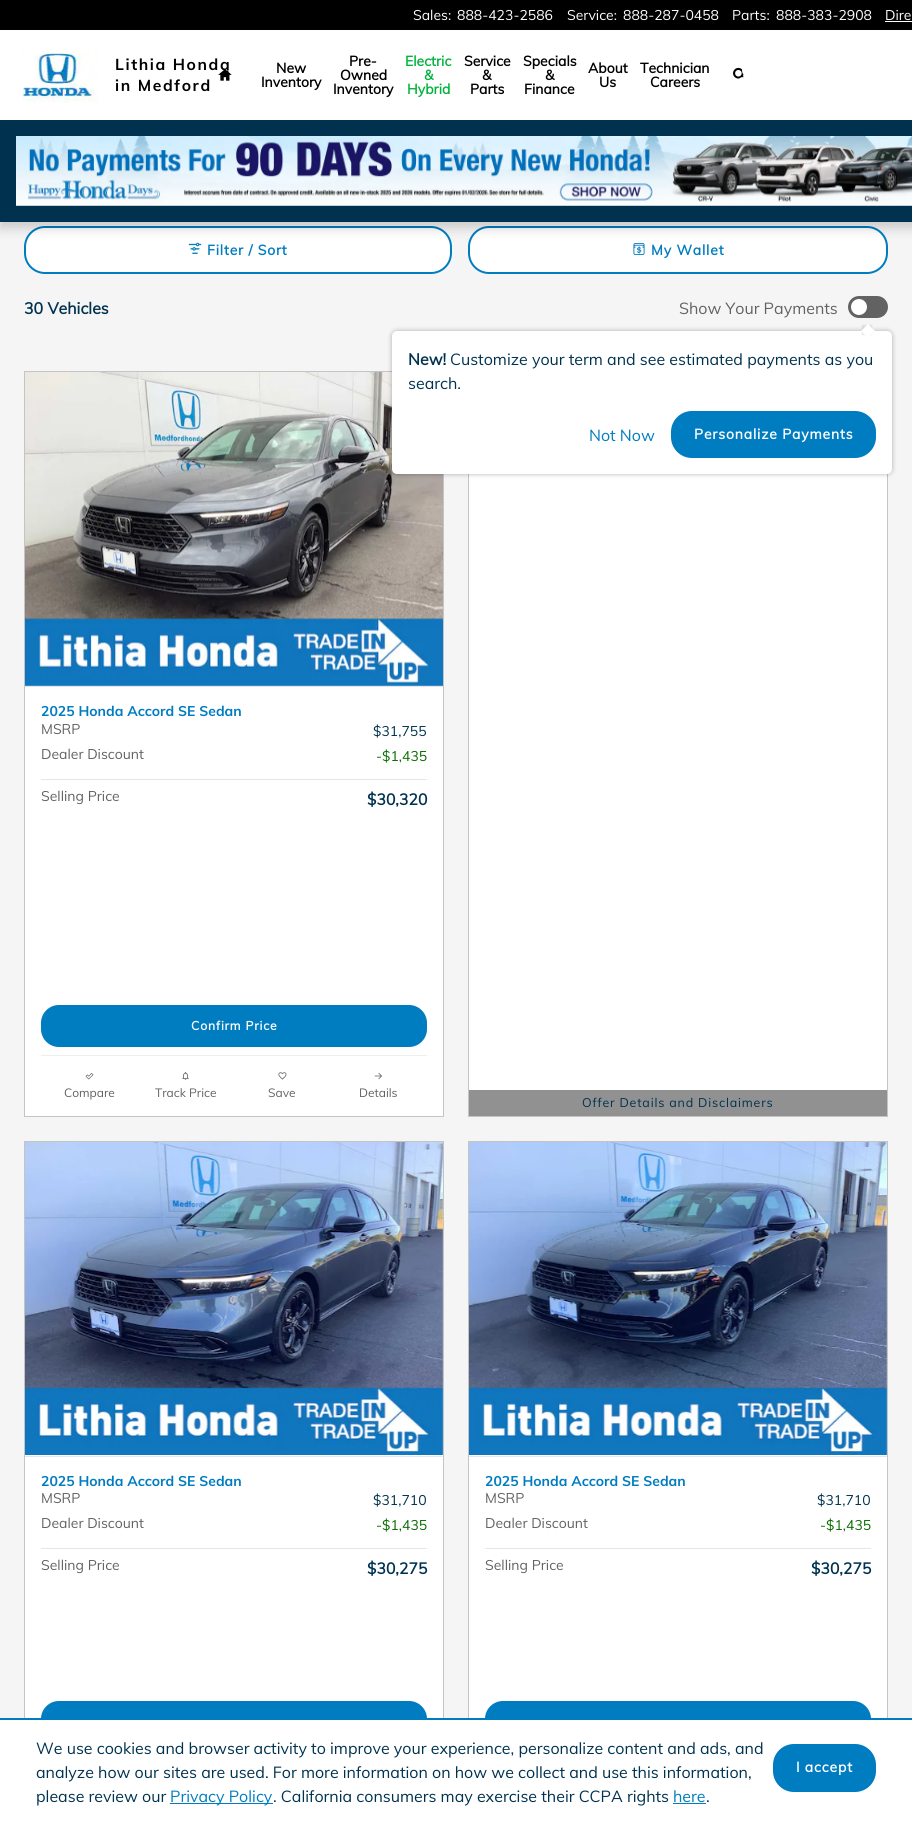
#include <cairo.h>
#include <math.h>
#include <stddef.h>

static cairo_t *ctx;

static void use_color(int r, int g, int b) {
    cairo_set_source_rgb(ctx, r / 255.0, g / 255.0, b / 255.0);
}

static void spaced_text(double x, double y, const char *s, double letter, double word) {
    cairo_move_to(ctx, x, y);
    while (*s) {
        char ch[5] = {0};
        int n = 0;
        do ch[n++] = *s++; while ((*s & 0xC0) == 0x80);
        cairo_show_text(ctx, ch);
        cairo_rel_move_to(ctx, letter + word * (*ch == ' '), 0);
    }
}

static void round_rect(double x, double y, double w, double h, double r) {
    cairo_new_sub_path(ctx);
    cairo_arc(ctx, x + w - r, y + h - r, r, 0, M_PI / 2);
    cairo_arc(ctx, x + r, y + h - r, r, M_PI / 2, M_PI);
    cairo_arc(ctx, x + r, y + r, r, M_PI, 1.5 * M_PI);
    cairo_arc(ctx, x + w - r, y + r, r, 1.5 * M_PI, 2 * M_PI);
    cairo_close_path(ctx);
}

static void shadow(double x, double y, double w, double h, double r, double blur, double alpha) {
    cairo_push_group_with_content(ctx, CAIRO_CONTENT_ALPHA);
    cairo_set_operator(ctx, CAIRO_OPERATOR_SOURCE);
    for (int i = 15; i >= -15 && fmin(w, h) + blur * i / 3 > 0; i -= 2) {
        double e = blur * i / 6;
        cairo_set_source_rgba(ctx, 0, 0, 0, alpha * erfc((i - 1) / 8.5) / 2);
        round_rect(x - e, y - e, w + 2 * e, h + 2 * e, fmax(0, fmin(r + e + blur * .6, fmin(w, h) / 2 + e)));
        cairo_fill(ctx);
    }
    cairo_pattern_t *soft = cairo_pop_group(ctx);
    cairo_mask(ctx, soft);
    cairo_pattern_destroy(soft);
}

static void picture(const char *path, double x, double y, double w, double h) {
    cairo_surface_t *image = cairo_image_surface_create_from_png(path);
    cairo_save(ctx);
    cairo_set_source_surface(ctx, image, x, y);
    cairo_rectangle(ctx, x, y, w, h);
    cairo_fill(ctx);
    cairo_restore(ctx);
    cairo_surface_destroy(image);
}

int main(void) {
    cairo_surface_t *surface = cairo_image_surface_create(CAIRO_FORMAT_RGB24, 912, 1824);
    ctx = cairo_create(surface);
    cairo_font_options_t *options = cairo_font_options_create();
    cairo_font_options_set_hint_metrics(options, CAIRO_HINT_METRICS_OFF);
    cairo_font_options_set_hint_style(options, CAIRO_HINT_STYLE_NONE);
    cairo_set_font_options(ctx, options);
    cairo_set_miter_limit(ctx, 4);
    use_color(245, 245, 245);
    cairo_paint(ctx);
    use_color(255, 255, 255);
    round_rect(25, 227, 426, 46, 20);
    cairo_fill_preserve(ctx);
    use_color(0, 124, 192);
    cairo_stroke(ctx);
    picture("img6.png", 188, 242, 14, 12);
    use_color(255, 255, 255);
    round_rect(469, 227, 418, 46, 20);
    cairo_fill_preserve(ctx);
    use_color(0, 124, 192);
    cairo_stroke(ctx);
    picture("img7.png", 633, 243, 12, 12);
    use_color(0, 0, 0);
    shadow(0, 6, 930, 222, 0, 6, 0.18);
    use_color(255, 255, 255);
    cairo_rectangle(ctx, 0, 30, 912, 90);
    cairo_fill(ctx);
    use_color(0, 0, 0);
    cairo_rectangle(ctx, 0, 0, 912, 30);
    cairo_fill(ctx);
    cairo_select_font_face(ctx, "Muli", CAIRO_FONT_SLANT_NORMAL, CAIRO_FONT_WEIGHT_NORMAL);
    cairo_set_font_size(ctx, 14);
    use_color(255, 255, 255);
    cairo_move_to(ctx, 413, 20);
    cairo_show_text(ctx, "Sales:");
    cairo_move_to(ctx, 457, 20);
    cairo_show_text(ctx, "888-423-2586");
    cairo_move_to(ctx, 567, 20);
    cairo_show_text(ctx, "Service:");
    cairo_move_to(ctx, 623, 20);
    cairo_show_text(ctx, "888-287-0458");
    cairo_move_to(ctx, 732, 20);
    cairo_show_text(ctx, "Parts:");
    cairo_move_to(ctx, 776, 20);
    cairo_show_text(ctx, "888-383-2908");
    cairo_move_to(ctx, 885, 20);
    cairo_show_text(ctx, "Dire");
    cairo_rectangle(ctx, 885, 21, 27, 1);
    cairo_fill(ctx);
    picture("img1.png", 22, 49, 76, 54);
    cairo_select_font_face(ctx, "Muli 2", CAIRO_FONT_SLANT_NORMAL, CAIRO_FONT_WEIGHT_BOLD);
    cairo_set_font_size(ctx, 15.75);
    use_color(0, 0, 0);
    spaced_text(115, 70, "Lithia Honda", 1.6, 0);
    spaced_text(115, 91, "in Medford", 1.6, 0);
    picture("img2.png", 218, 69, 14, 12);
    cairo_select_font_face(ctx, "Muli", CAIRO_FONT_SLANT_NORMAL, CAIRO_FONT_WEIGHT_BOLD);
    cairo_set_font_size(ctx, 14);
    cairo_move_to(ctx, 276, 73);
    cairo_show_text(ctx, "New");
    cairo_move_to(ctx, 261, 87);
    cairo_show_text(ctx, "Inventory");
    cairo_move_to(ctx, 349, 66);
    cairo_show_text(ctx, "Pre-");
    cairo_move_to(ctx, 340, 80);
    cairo_show_text(ctx, "Owned");
    cairo_move_to(ctx, 333, 94);
    cairo_show_text(ctx, "Inventory");
    use_color(0, 179, 60);
    cairo_move_to(ctx, 405, 66);
    cairo_show_text(ctx, "Electric");
    cairo_move_to(ctx, 424, 80);
    cairo_show_text(ctx, "&");
    cairo_move_to(ctx, 407, 94);
    cairo_show_text(ctx, "Hybrid");
    use_color(0, 0, 0);
    cairo_move_to(ctx, 464, 66);
    cairo_show_text(ctx, "Service");
    cairo_move_to(ctx, 482, 80);
    cairo_show_text(ctx, "&");
    cairo_move_to(ctx, 470, 94);
    cairo_show_text(ctx, "Parts");
    cairo_move_to(ctx, 523, 66);
    cairo_show_text(ctx, "Specials");
    cairo_move_to(ctx, 545, 80);
    cairo_show_text(ctx, "&");
    cairo_move_to(ctx, 524, 94);
    cairo_show_text(ctx, "Finance");
    cairo_move_to(ctx, 588, 73);
    cairo_show_text(ctx, "About");
    cairo_move_to(ctx, 599, 87);
    cairo_show_text(ctx, "Us");
    cairo_move_to(ctx, 640, 73);
    cairo_show_text(ctx, "Technician");
    cairo_move_to(ctx, 650, 87);
    cairo_show_text(ctx, "Careers");
    picture("img3.png", 733, 67, 12, 12);
    picture("img4.png", 739, 69, 8, 13);
    use_color(0, 50, 79);
    cairo_rectangle(ctx, 0, 120, 912, 102);
    cairo_fill(ctx);
    picture("img5.png", 16, 136, 896, 70);
    use_color(0, 124, 192);
    spaced_text(207, 255, "Filter / Sort", 0.8, 0);
    spaced_text(651, 255, "My Wallet", 0.8, 0);
    cairo_set_font_size(ctx, 16);
    use_color(0, 50, 79);
    cairo_move_to(ctx, 24, 314);
    cairo_show_text(ctx, "30 Vehicles");
    cairo_select_font_face(ctx, "Muli", CAIRO_FONT_SLANT_NORMAL, CAIRO_FONT_WEIGHT_NORMAL);
    use_color(98, 98, 98);
    cairo_move_to(ctx, 679, 314);
    cairo_show_text(ctx, "Show Your Payments");
    round_rect(848, 296, 40, 22, 11);
    cairo_fill(ctx);
    use_color(255, 255, 255);
    cairo_arc(ctx, 859, 307, 8, 0, 2 * M_PI);
    cairo_fill(ctx);
    cairo_rectangle(ctx, 25, 685, 418, 431);
    cairo_fill(ctx);
    cairo_rectangle(ctx, 24.5, 371.5, 419, 745);
    use_color(196, 196, 196);
    cairo_set_line_width(ctx, 1);
    cairo_stroke(ctx);
    picture("img8.png", 25, 372, 418, 314);
    use_color(255, 255, 255);
    cairo_rectangle(ctx, 469, 474, 418, 616);
    cairo_fill(ctx);
    cairo_rectangle(ctx, 468.5, 371.5, 419, 745);
    use_color(196, 196, 196);
    cairo_stroke(ctx);
    use_color(0, 0, 0);
    shadow(392, 331, 500, 143, 5, 2.5, 0.3);
    use_color(255, 255, 255);
    round_rect(392, 331, 500, 143, 5);
    cairo_fill(ctx);
    use_color(0, 0, 0);
    shadow(862, 325, 10, 10, 0, 0.5, 0.1);
    use_color(255, 255, 255);
    cairo_new_path(ctx);
    cairo_move_to(ctx, 868, 324);
    cairo_line_to(ctx, 875, 331);
    cairo_line_to(ctx, 868, 338);
    cairo_line_to(ctx, 861, 331);
    cairo_close_path(ctx);
    cairo_fill(ctx);
    cairo_select_font_face(ctx, "Muli", CAIRO_FONT_SLANT_NORMAL, CAIRO_FONT_WEIGHT_BOLD);
    use_color(0, 50, 79);
    cairo_move_to(ctx, 408, 365);
    cairo_show_text(ctx, "New!");
    cairo_select_font_face(ctx, "Muli", CAIRO_FONT_SLANT_NORMAL, CAIRO_FONT_WEIGHT_NORMAL);
    cairo_move_to(ctx, 450, 365);
    cairo_show_text(ctx, "Customize your term and see estimated payments as you");
    cairo_move_to(ctx, 408, 389);
    cairo_show_text(ctx, "search.");
    use_color(0, 124, 192);
    cairo_move_to(ctx, 589, 441);
    cairo_show_text(ctx, "Not Now");
    round_rect(672, 412, 203, 45, 20);
    cairo_fill_preserve(ctx);
    cairo_set_line_width(ctx, 2);
    cairo_stroke(ctx);
    cairo_select_font_face(ctx, "Muli", CAIRO_FONT_SLANT_NORMAL, CAIRO_FONT_WEIGHT_BOLD);
    cairo_set_font_size(ctx, 14);
    use_color(255, 255, 255);
    spaced_text(694, 439, "Personalize Payments", 0.8, 0);
    use_color(230, 230, 230);
    cairo_rectangle(ctx, 25, 686, 418, 1);
    cairo_fill(ctx);
    cairo_select_font_face(ctx, "Muli 2", CAIRO_FONT_SLANT_NORMAL, CAIRO_FONT_WEIGHT_BOLD);
    use_color(0, 124, 192);
    cairo_move_to(ctx, 41, 716);
    cairo_show_text(ctx, "2025 Honda Accord SE Sedan");
    cairo_select_font_face(ctx, "Muli", CAIRO_FONT_SLANT_NORMAL, CAIRO_FONT_WEIGHT_NORMAL);
    use_color(98, 98, 98);
    cairo_move_to(ctx, 41, 734);
    cairo_show_text(ctx, "MSRP");
    use_color(0, 50, 79);
    cairo_move_to(ctx, 373, 736);
    cairo_show_text(ctx, "$31,755");
    use_color(98, 98, 98);
    cairo_move_to(ctx, 41, 759);
    cairo_show_text(ctx, "Dealer Discount");
    use_color(8, 107, 0);
    cairo_move_to(ctx, 376, 761);
    cairo_show_text(ctx, "-$1,435");
    use_color(230, 230, 230);
    cairo_rectangle(ctx, 41, 779, 386, 1);
    cairo_fill(ctx);
    use_color(98, 98, 98);
    cairo_move_to(ctx, 41, 801);
    cairo_show_text(ctx, "Selling Price");
    cairo_select_font_face(ctx, "Muli", CAIRO_FONT_SLANT_NORMAL, CAIRO_FONT_WEIGHT_BOLD);
    cairo_set_font_size(ctx, 15.75);
    use_color(0, 50, 79);
    cairo_move_to(ctx, 367, 805);
    cairo_show_text(ctx, "$30,320");
    use_color(0, 124, 192);
    round_rect(42, 1006, 384, 40, 17);
    cairo_fill_preserve(ctx);
    cairo_stroke(ctx);
    cairo_set_font_size(ctx, 12.25);
    use_color(255, 255, 255);
    spaced_text(191, 1030, "Confirm Price", 0.8, 0);
    use_color(238, 238, 238);
    cairo_rectangle(ctx, 41, 1055, 386, 1);
    cairo_fill(ctx);
    picture("img9.png", 85, 1073, 9, 7);
    cairo_select_font_face(ctx, "Muli", CAIRO_FONT_SLANT_NORMAL, CAIRO_FONT_WEIGHT_NORMAL);
    cairo_set_font_size(ctx, 12);
    use_color(98, 98, 98);
    cairo_move_to(ctx, 64, 1097);
    cairo_show_text(ctx, "Compare");
    picture("img10.png", 182, 1072, 7, 9);
    cairo_move_to(ctx, 155, 1097);
    cairo_show_text(ctx, "Track Price");
    picture("img11.png", 278, 1072, 9, 8);
    cairo_move_to(ctx, 268, 1097);
    cairo_show_text(ctx, "Save");
    picture("img12.png", 374, 1072, 8, 8);
    cairo_move_to(ctx, 359, 1097);
    cairo_show_text(ctx, "Details");
    use_color(145, 145, 145);
    cairo_rectangle(ctx, 469, 1090, 418, 26);
    cairo_fill(ctx);
    cairo_set_font_size(ctx, 12.5);
    use_color(0, 50, 79);
    spaced_text(582, 1107, "Offer Details and Disclaimers", 0.8, 0);
    use_color(255, 255, 255);
    cairo_rectangle(ctx, 25, 1142, 418, 576);
    cairo_fill(ctx);
    cairo_rectangle(ctx, 24.5, 1141.5, 419, 670);
    use_color(196, 196, 196);
    cairo_set_line_width(ctx, 1);
    cairo_stroke(ctx);
    use_color(230, 230, 230);
    cairo_rectangle(ctx, 25, 1456, 418, 1);
    cairo_fill(ctx);
    picture("img13.png", 25, 1142, 418, 313);
    cairo_select_font_face(ctx, "Muli 2", CAIRO_FONT_SLANT_NORMAL, CAIRO_FONT_WEIGHT_BOLD);
    cairo_set_font_size(ctx, 14);
    use_color(0, 124, 192);
    cairo_move_to(ctx, 41, 1486);
    cairo_show_text(ctx, "2025 Honda Accord SE Sedan");
    cairo_select_font_face(ctx, "Muli", CAIRO_FONT_SLANT_NORMAL, CAIRO_FONT_WEIGHT_NORMAL);
    use_color(98, 98, 98);
    cairo_move_to(ctx, 41, 1503);
    cairo_show_text(ctx, "MSRP");
    use_color(0, 50, 79);
    cairo_move_to(ctx, 373, 1505);
    cairo_show_text(ctx, "$31,710");
    use_color(98, 98, 98);
    cairo_move_to(ctx, 41, 1528);
    cairo_show_text(ctx, "Dealer Discount");
    use_color(8, 107, 0);
    cairo_move_to(ctx, 376, 1530);
    cairo_show_text(ctx, "-$1,435");
    use_color(230, 230, 230);
    cairo_rectangle(ctx, 41, 1548, 386, 1);
    cairo_fill(ctx);
    use_color(98, 98, 98);
    cairo_move_to(ctx, 41, 1570);
    cairo_show_text(ctx, "Selling Price");
    cairo_select_font_face(ctx, "Muli", CAIRO_FONT_SLANT_NORMAL, CAIRO_FONT_WEIGHT_BOLD);
    cairo_set_font_size(ctx, 15.75);
    use_color(0, 50, 79);
    cairo_move_to(ctx, 367, 1574);
    cairo_show_text(ctx, "$30,275");
    use_color(0, 124, 192);
    round_rect(42, 1702, 384, 40, 17);
    cairo_fill_preserve(ctx);
    cairo_set_line_width(ctx, 2);
    cairo_stroke(ctx);
    use_color(255, 255, 255);
    cairo_rectangle(ctx, 469, 1142, 418, 576);
    cairo_fill(ctx);
    cairo_rectangle(ctx, 468.5, 1141.5, 419, 670);
    use_color(196, 196, 196);
    cairo_set_line_width(ctx, 1);
    cairo_stroke(ctx);
    use_color(230, 230, 230);
    cairo_rectangle(ctx, 469, 1456, 418, 1);
    cairo_fill(ctx);
    picture("img14.png", 469, 1142, 418, 313);
    cairo_select_font_face(ctx, "Muli 2", CAIRO_FONT_SLANT_NORMAL, CAIRO_FONT_WEIGHT_BOLD);
    cairo_set_font_size(ctx, 14);
    use_color(0, 124, 192);
    cairo_move_to(ctx, 485, 1486);
    cairo_show_text(ctx, "2025 Honda Accord SE Sedan");
    cairo_select_font_face(ctx, "Muli", CAIRO_FONT_SLANT_NORMAL, CAIRO_FONT_WEIGHT_NORMAL);
    use_color(98, 98, 98);
    cairo_move_to(ctx, 485, 1503);
    cairo_show_text(ctx, "MSRP");
    use_color(0, 50, 79);
    cairo_move_to(ctx, 817, 1505);
    cairo_show_text(ctx, "$31,710");
    use_color(98, 98, 98);
    cairo_move_to(ctx, 485, 1528);
    cairo_show_text(ctx, "Dealer Discount");
    use_color(8, 107, 0);
    cairo_move_to(ctx, 820, 1530);
    cairo_show_text(ctx, "-$1,435");
    use_color(230, 230, 230);
    cairo_rectangle(ctx, 485, 1548, 386, 1);
    cairo_fill(ctx);
    use_color(98, 98, 98);
    cairo_move_to(ctx, 485, 1570);
    cairo_show_text(ctx, "Selling Price");
    cairo_select_font_face(ctx, "Muli", CAIRO_FONT_SLANT_NORMAL, CAIRO_FONT_WEIGHT_BOLD);
    cairo_set_font_size(ctx, 15.75);
    use_color(0, 50, 79);
    cairo_move_to(ctx, 811, 1574);
    cairo_show_text(ctx, "$30,275");
    use_color(0, 124, 192);
    round_rect(486, 1702, 384, 40, 17);
    cairo_fill_preserve(ctx);
    cairo_set_line_width(ctx, 2);
    cairo_stroke(ctx);
    use_color(255, 255, 255);
    cairo_rectangle(ctx, 0, 1720, 912, 104);
    cairo_fill(ctx);
    use_color(0, 124, 192);
    cairo_rectangle(ctx, 0, 1718, 912, 2);
    cairo_fill(ctx);
    cairo_select_font_face(ctx, "Muli", CAIRO_FONT_SLANT_NORMAL, CAIRO_FONT_WEIGHT_NORMAL);
    cairo_set_font_size(ctx, 16);
    use_color(0, 50, 79);
    cairo_move_to(ctx, 36, 1754);
    cairo_show_text(ctx, "We use cookies and browser activity to improve your experience, personalize content and ads, and");
    cairo_move_to(ctx, 36, 1778);
    cairo_show_text(ctx, "analyze how our sites are used. For more information on how we collect and use this information,");
    cairo_move_to(ctx, 36, 1802);
    cairo_show_text(ctx, "please review our");
    use_color(0, 124, 192);
    cairo_rectangle(ctx, 170, 1803, 103, 1);
    cairo_fill(ctx);
    cairo_move_to(ctx, 170, 1802);
    cairo_show_text(ctx, "Privacy Policy");
    use_color(0, 50, 79);
    cairo_move_to(ctx, 273, 1802);
    cairo_show_text(ctx, ". California consumers may exercise their CCPA rights");
    use_color(0, 124, 192);
    cairo_move_to(ctx, 673, 1802);
    cairo_show_text(ctx, "here");
    cairo_rectangle(ctx, 673, 1803, 33, 1);
    cairo_fill(ctx);
    use_color(0, 50, 79);
    cairo_move_to(ctx, 706, 1802);
    cairo_show_text(ctx, ".");
    use_color(0, 124, 192);
    round_rect(774, 1745, 101, 46, 20);
    cairo_fill_preserve(ctx);
    cairo_stroke(ctx);
    cairo_select_font_face(ctx, "Muli", CAIRO_FONT_SLANT_NORMAL, CAIRO_FONT_WEIGHT_BOLD);
    cairo_set_font_size(ctx, 14);
    use_color(255, 255, 255);
    spaced_text(796, 1772, "I accept", 0.8, 0);
    cairo_surface_write_to_png(surface, "result.png");
    cairo_font_options_destroy(options);
    cairo_destroy(ctx);
    cairo_surface_destroy(surface);
    return 0;
}
